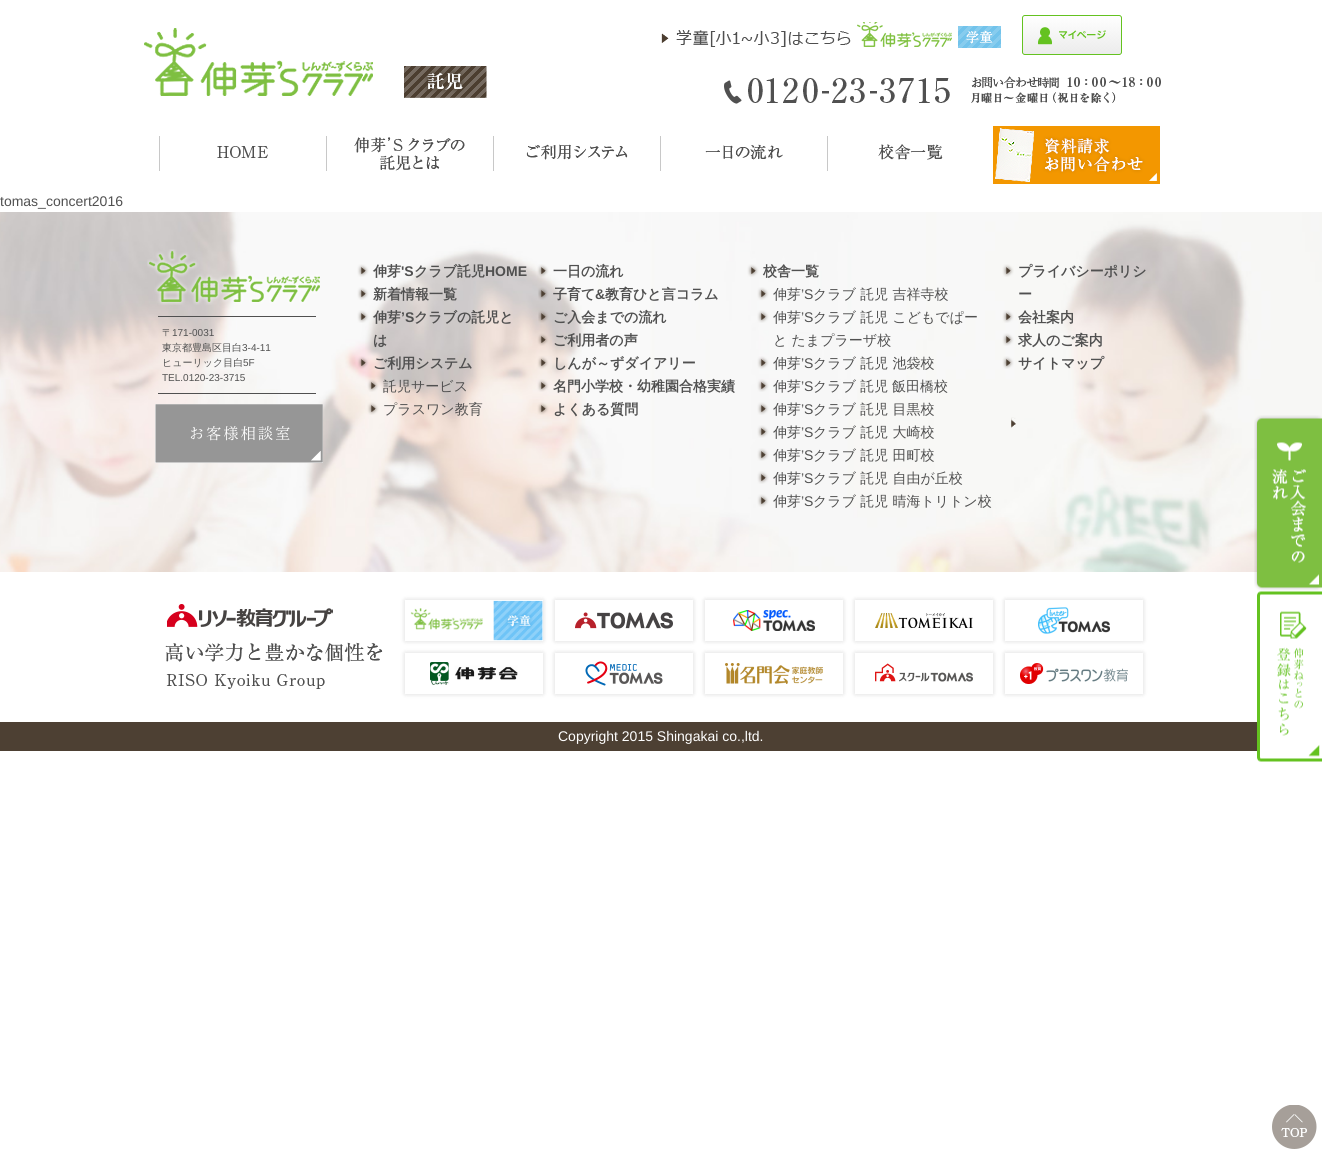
#include <cairo.h>
#include <math.h>
#include <stddef.h>

static cairo_t *ctx;

static void use_color(int r, int g, int b) {
    cairo_set_source_rgb(ctx, r / 255.0, g / 255.0, b / 255.0);
}

static void round_rect(double x, double y, double w, double h, double r) {
    cairo_new_sub_path(ctx);
    cairo_arc(ctx, x + w - r, y + h - r, r, 0, M_PI / 2);
    cairo_arc(ctx, x + r, y + h - r, r, M_PI / 2, M_PI);
    cairo_arc(ctx, x + r, y + r, r, M_PI, 1.5 * M_PI);
    cairo_arc(ctx, x + w - r, y + r, r, 1.5 * M_PI, 2 * M_PI);
    cairo_close_path(ctx);
}

static void shadow(double x, double y, double w, double h, double r, double blur, double alpha) {
    cairo_push_group_with_content(ctx, CAIRO_CONTENT_ALPHA);
    cairo_set_operator(ctx, CAIRO_OPERATOR_SOURCE);
    for (int i = 15; i >= -15 && fmin(w, h) + blur * i / 3 > 0; i -= 2) {
        double e = blur * i / 6;
        cairo_set_source_rgba(ctx, 0, 0, 0, alpha * erfc((i - 1) / 8.5) / 2);
        round_rect(x - e, y - e, w + 2 * e, h + 2 * e, fmax(0, fmin(r + e + blur * .6, fmin(w, h) / 2 + e)));
        cairo_fill(ctx);
    }
    cairo_pattern_t *soft = cairo_pop_group(ctx);
    cairo_mask(ctx, soft);
    cairo_pattern_destroy(soft);
}

static void picture(const char *path, double x, double y, double w, double h) {
    cairo_surface_t *image = cairo_image_surface_create_from_png(path);
    cairo_save(ctx);
    cairo_set_source_surface(ctx, image, x, y);
    cairo_rectangle(ctx, x, y, w, h);
    cairo_fill(ctx);
    cairo_restore(ctx);
    cairo_surface_destroy(image);
}

int main(void) {
    cairo_surface_t *surface = cairo_image_surface_create(CAIRO_FORMAT_RGB24, 1322, 1175);
    ctx = cairo_create(surface);
    cairo_font_options_t *options = cairo_font_options_create();
    cairo_font_options_set_hint_metrics(options, CAIRO_HINT_METRICS_OFF);
    cairo_font_options_set_hint_style(options, CAIRO_HINT_STYLE_NONE);
    cairo_set_font_options(ctx, options);
    cairo_set_miter_limit(ctx, 4);
    use_color(255, 255, 255);
    cairo_paint(ctx);
    picture("img1.png", 144, 28, 229, 68);
    picture("img2.png", 404, 66, 83, 32);
    picture("img3.png", 661, 22, 340, 26);
    picture("img4.png", 1022, 15, 100, 40);
    picture("img5.png", 724, 76, 437, 28);
    use_color(200, 200, 200);
    cairo_rectangle(ctx, 159, 136, 1, 35);
    cairo_fill(ctx);
    picture("img6.png", 217, 146, 51, 12);
    cairo_rectangle(ctx, 326, 136, 1, 35);
    cairo_fill(ctx);
    picture("img7.png", 354, 137, 111, 34);
    cairo_rectangle(ctx, 493, 136, 1, 35);
    cairo_fill(ctx);
    picture("img8.png", 526, 144, 102, 16);
    cairo_rectangle(ctx, 660, 136, 1, 35);
    cairo_fill(ctx);
    picture("img9.png", 705, 144, 78, 16);
    cairo_rectangle(ctx, 827, 136, 1, 35);
    cairo_fill(ctx);
    picture("img10.png", 878, 144, 65, 16);
    picture("img11.png", 993, 126, 167, 58);
    cairo_select_font_face(ctx, "Liberation Sans", CAIRO_FONT_SLANT_NORMAL, CAIRO_FONT_WEIGHT_NORMAL);
    cairo_set_font_size(ctx, 14);
    use_color(80, 80, 80);
    cairo_move_to(ctx, 0, 206);
    cairo_show_text(ctx, "tomas_concert2016");
    picture("img12.png", 0, 212, 1322, 360);
    picture("img13.png", 147, 249, 173, 56);
    cairo_rectangle(ctx, 158, 316, 158, 1);
    cairo_fill(ctx);
    cairo_rectangle(ctx, 158, 393, 158, 1);
    cairo_fill(ctx);
    cairo_select_font_face(ctx, "WenQuanYi Zen Hei Medium", CAIRO_FONT_SLANT_NORMAL, CAIRO_FONT_WEIGHT_NORMAL);
    cairo_set_font_size(ctx, 10);
    cairo_move_to(ctx, 162, 336);
    cairo_show_text(ctx, "〒");
    cairo_select_font_face(ctx, "Liberation Sans", CAIRO_FONT_SLANT_NORMAL, CAIRO_FONT_WEIGHT_NORMAL);
    cairo_move_to(ctx, 172, 336);
    cairo_show_text(ctx, "171-0031");
    cairo_select_font_face(ctx, "WenQuanYi Zen Hei Medium", CAIRO_FONT_SLANT_NORMAL, CAIRO_FONT_WEIGHT_NORMAL);
    cairo_move_to(ctx, 162, 351);
    cairo_show_text(ctx, "東京都豊島区目白");
    cairo_select_font_face(ctx, "Liberation Sans", CAIRO_FONT_SLANT_NORMAL, CAIRO_FONT_WEIGHT_NORMAL);
    cairo_move_to(ctx, 242, 351);
    cairo_show_text(ctx, "3-4-11");
    cairo_select_font_face(ctx, "WenQuanYi Zen Hei Medium", CAIRO_FONT_SLANT_NORMAL, CAIRO_FONT_WEIGHT_NORMAL);
    cairo_move_to(ctx, 162, 366);
    cairo_show_text(ctx, "ヒューリック目白");
    cairo_select_font_face(ctx, "Liberation Sans", CAIRO_FONT_SLANT_NORMAL, CAIRO_FONT_WEIGHT_NORMAL);
    cairo_move_to(ctx, 243, 366);
    cairo_show_text(ctx, "5F");
    cairo_move_to(ctx, 162, 381);
    cairo_show_text(ctx, "TEL.0120-23-3715");
    picture("img14.png", 155, 404, 168, 59);
    picture("img15.png", 357, 264, 12, 13);
    cairo_select_font_face(ctx, "WenQuanYi Zen Hei", CAIRO_FONT_SLANT_NORMAL, CAIRO_FONT_WEIGHT_BOLD);
    cairo_set_font_size(ctx, 14);
    cairo_move_to(ctx, 373, 276);
    cairo_show_text(ctx, "伸芽");
    cairo_select_font_face(ctx, "Liberation Sans", CAIRO_FONT_SLANT_NORMAL, CAIRO_FONT_WEIGHT_BOLD);
    cairo_move_to(ctx, 401, 276);
    cairo_show_text(ctx, "'S");
    cairo_select_font_face(ctx, "WenQuanYi Zen Hei", CAIRO_FONT_SLANT_NORMAL, CAIRO_FONT_WEIGHT_BOLD);
    cairo_move_to(ctx, 414, 276);
    cairo_show_text(ctx, "クラブ託児");
    cairo_select_font_face(ctx, "Liberation Sans", CAIRO_FONT_SLANT_NORMAL, CAIRO_FONT_WEIGHT_BOLD);
    cairo_move_to(ctx, 485, 276);
    cairo_show_text(ctx, "HOME");
    picture("img15.png", 357, 287, 12, 13);
    cairo_select_font_face(ctx, "WenQuanYi Zen Hei", CAIRO_FONT_SLANT_NORMAL, CAIRO_FONT_WEIGHT_BOLD);
    cairo_move_to(ctx, 373, 299);
    cairo_show_text(ctx, "新着情報一覧");
    picture("img16.png", 357, 310, 12, 13);
    cairo_move_to(ctx, 373, 322);
    cairo_show_text(ctx, "伸芽");
    cairo_select_font_face(ctx, "Liberation Sans", CAIRO_FONT_SLANT_NORMAL, CAIRO_FONT_WEIGHT_BOLD);
    cairo_move_to(ctx, 401, 322);
    cairo_show_text(ctx, "’S");
    cairo_select_font_face(ctx, "WenQuanYi Zen Hei", CAIRO_FONT_SLANT_NORMAL, CAIRO_FONT_WEIGHT_BOLD);
    cairo_move_to(ctx, 414, 322);
    cairo_show_text(ctx, "クラブの託児と");
    cairo_move_to(ctx, 373, 345);
    cairo_show_text(ctx, "は");
    picture("img17.png", 357, 356, 12, 13);
    cairo_move_to(ctx, 373, 368);
    cairo_show_text(ctx, "ご利用システム");
    picture("img18.png", 367, 379, 12, 13);
    cairo_select_font_face(ctx, "WenQuanYi Zen Hei Medium", CAIRO_FONT_SLANT_NORMAL, CAIRO_FONT_WEIGHT_NORMAL);
    cairo_move_to(ctx, 383, 391);
    cairo_show_text(ctx, "託児サービス");
    picture("img19.png", 367, 402, 12, 13);
    cairo_move_to(ctx, 383, 414);
    cairo_show_text(ctx, "プラスワン教育");
    picture("img20.png", 537, 264, 12, 13);
    cairo_select_font_face(ctx, "WenQuanYi Zen Hei", CAIRO_FONT_SLANT_NORMAL, CAIRO_FONT_WEIGHT_BOLD);
    cairo_move_to(ctx, 553, 276);
    cairo_show_text(ctx, "一日の流れ");
    picture("img21.png", 538, 287, 11, 13);
    cairo_move_to(ctx, 553, 299);
    cairo_show_text(ctx, "子育て");
    cairo_select_font_face(ctx, "Liberation Sans", CAIRO_FONT_SLANT_NORMAL, CAIRO_FONT_WEIGHT_BOLD);
    cairo_move_to(ctx, 595, 299);
    cairo_show_text(ctx, "&");
    cairo_select_font_face(ctx, "WenQuanYi Zen Hei", CAIRO_FONT_SLANT_NORMAL, CAIRO_FONT_WEIGHT_BOLD);
    cairo_move_to(ctx, 605, 299);
    cairo_show_text(ctx, "教育ひと言コラム");
    picture("img22.png", 538, 310, 11, 13);
    cairo_move_to(ctx, 553, 322);
    cairo_show_text(ctx, "ご入会までの流れ");
    picture("img23.png", 537, 333, 12, 13);
    cairo_move_to(ctx, 553, 345);
    cairo_show_text(ctx, "ご利用者の声");
    picture("img24.png", 537, 356, 12, 13);
    cairo_move_to(ctx, 553, 368);
    cairo_show_text(ctx, "しんが～ずダイアリー");
    picture("img25.png", 537, 379, 12, 13);
    cairo_move_to(ctx, 553, 391);
    cairo_show_text(ctx, "名門小学校・幼稚園合格実績");
    picture("img26.png", 537, 402, 12, 13);
    cairo_move_to(ctx, 553, 414);
    cairo_show_text(ctx, "よくある質問");
    picture("img27.png", 747, 264, 12, 13);
    cairo_move_to(ctx, 763, 276);
    cairo_show_text(ctx, "校舎一覧");
    picture("img28.png", 757, 287, 12, 13);
    cairo_select_font_face(ctx, "WenQuanYi Zen Hei Medium", CAIRO_FONT_SLANT_NORMAL, CAIRO_FONT_WEIGHT_NORMAL);
    cairo_move_to(ctx, 773, 299);
    cairo_show_text(ctx, "伸芽");
    cairo_select_font_face(ctx, "Liberation Sans", CAIRO_FONT_SLANT_NORMAL, CAIRO_FONT_WEIGHT_NORMAL);
    cairo_move_to(ctx, 801, 299);
    cairo_show_text(ctx, "’S");
    cairo_select_font_face(ctx, "WenQuanYi Zen Hei Medium", CAIRO_FONT_SLANT_NORMAL, CAIRO_FONT_WEIGHT_NORMAL);
    cairo_move_to(ctx, 813, 299);
    cairo_show_text(ctx, "クラブ 託児 吉祥寺校");
    picture("img29.png", 757, 310, 12, 13);
    cairo_move_to(ctx, 773, 322);
    cairo_show_text(ctx, "伸芽");
    cairo_select_font_face(ctx, "Liberation Sans", CAIRO_FONT_SLANT_NORMAL, CAIRO_FONT_WEIGHT_NORMAL);
    cairo_move_to(ctx, 801, 322);
    cairo_show_text(ctx, "’S");
    cairo_select_font_face(ctx, "WenQuanYi Zen Hei Medium", CAIRO_FONT_SLANT_NORMAL, CAIRO_FONT_WEIGHT_NORMAL);
    cairo_move_to(ctx, 813, 322);
    cairo_show_text(ctx, "クラブ 託児 こどもでぱー");
    cairo_move_to(ctx, 773, 345);
    cairo_show_text(ctx, "と たまプラーザ校");
    picture("img30.png", 757, 356, 12, 13);
    cairo_move_to(ctx, 773, 368);
    cairo_show_text(ctx, "伸芽");
    cairo_select_font_face(ctx, "Liberation Sans", CAIRO_FONT_SLANT_NORMAL, CAIRO_FONT_WEIGHT_NORMAL);
    cairo_move_to(ctx, 801, 368);
    cairo_show_text(ctx, "’S");
    cairo_select_font_face(ctx, "WenQuanYi Zen Hei Medium", CAIRO_FONT_SLANT_NORMAL, CAIRO_FONT_WEIGHT_NORMAL);
    cairo_move_to(ctx, 813, 368);
    cairo_show_text(ctx, "クラブ 託児 池袋校");
    picture("img31.png", 757, 379, 12, 13);
    cairo_move_to(ctx, 773, 391);
    cairo_show_text(ctx, "伸芽");
    cairo_select_font_face(ctx, "Liberation Sans", CAIRO_FONT_SLANT_NORMAL, CAIRO_FONT_WEIGHT_NORMAL);
    cairo_move_to(ctx, 801, 391);
    cairo_show_text(ctx, "’S");
    cairo_select_font_face(ctx, "WenQuanYi Zen Hei Medium", CAIRO_FONT_SLANT_NORMAL, CAIRO_FONT_WEIGHT_NORMAL);
    cairo_move_to(ctx, 813, 391);
    cairo_show_text(ctx, "クラブ 託児");
    cairo_move_to(ctx, 892, 391);
    cairo_show_text(ctx, "飯田橋校");
    picture("img32.png", 757, 402, 12, 13);
    cairo_move_to(ctx, 773, 414);
    cairo_show_text(ctx, "伸芽");
    cairo_select_font_face(ctx, "Liberation Sans", CAIRO_FONT_SLANT_NORMAL, CAIRO_FONT_WEIGHT_NORMAL);
    cairo_move_to(ctx, 801, 414);
    cairo_show_text(ctx, "’S");
    cairo_select_font_face(ctx, "WenQuanYi Zen Hei Medium", CAIRO_FONT_SLANT_NORMAL, CAIRO_FONT_WEIGHT_NORMAL);
    cairo_move_to(ctx, 813, 414);
    cairo_show_text(ctx, "クラブ 託児 目黒校");
    picture("img32.png", 757, 425, 12, 13);
    cairo_move_to(ctx, 773, 437);
    cairo_show_text(ctx, "伸芽");
    cairo_select_font_face(ctx, "Liberation Sans", CAIRO_FONT_SLANT_NORMAL, CAIRO_FONT_WEIGHT_NORMAL);
    cairo_move_to(ctx, 801, 437);
    cairo_show_text(ctx, "’S");
    cairo_select_font_face(ctx, "WenQuanYi Zen Hei Medium", CAIRO_FONT_SLANT_NORMAL, CAIRO_FONT_WEIGHT_NORMAL);
    cairo_move_to(ctx, 813, 437);
    cairo_show_text(ctx, "クラブ 託児 大崎校");
    picture("img33.png", 757, 448, 12, 13);
    cairo_move_to(ctx, 773, 460);
    cairo_show_text(ctx, "伸芽");
    cairo_select_font_face(ctx, "Liberation Sans", CAIRO_FONT_SLANT_NORMAL, CAIRO_FONT_WEIGHT_NORMAL);
    cairo_move_to(ctx, 801, 460);
    cairo_show_text(ctx, "’S");
    cairo_select_font_face(ctx, "WenQuanYi Zen Hei Medium", CAIRO_FONT_SLANT_NORMAL, CAIRO_FONT_WEIGHT_NORMAL);
    cairo_move_to(ctx, 813, 460);
    cairo_show_text(ctx, "クラブ 託児 田町校");
    picture("img34.png", 757, 471, 12, 13);
    cairo_move_to(ctx, 773, 483);
    cairo_show_text(ctx, "伸芽");
    cairo_select_font_face(ctx, "Liberation Sans", CAIRO_FONT_SLANT_NORMAL, CAIRO_FONT_WEIGHT_NORMAL);
    cairo_move_to(ctx, 801, 483);
    cairo_show_text(ctx, "’S");
    cairo_select_font_face(ctx, "WenQuanYi Zen Hei Medium", CAIRO_FONT_SLANT_NORMAL, CAIRO_FONT_WEIGHT_NORMAL);
    cairo_move_to(ctx, 813, 483);
    cairo_show_text(ctx, "クラブ 託児 自由が丘校");
    picture("img32.png", 757, 494, 12, 13);
    cairo_move_to(ctx, 773, 506);
    cairo_show_text(ctx, "伸芽");
    cairo_select_font_face(ctx, "Liberation Sans", CAIRO_FONT_SLANT_NORMAL, CAIRO_FONT_WEIGHT_NORMAL);
    cairo_move_to(ctx, 801, 506);
    cairo_show_text(ctx, "’S");
    cairo_select_font_face(ctx, "WenQuanYi Zen Hei Medium", CAIRO_FONT_SLANT_NORMAL, CAIRO_FONT_WEIGHT_NORMAL);
    cairo_move_to(ctx, 813, 506);
    cairo_show_text(ctx, "クラブ 託児 晴海トリトン校");
    picture("img35.png", 1002, 264, 12, 13);
    cairo_select_font_face(ctx, "WenQuanYi Zen Hei", CAIRO_FONT_SLANT_NORMAL, CAIRO_FONT_WEIGHT_BOLD);
    cairo_move_to(ctx, 1018, 276);
    cairo_show_text(ctx, "プライバシーポリシ");
    cairo_move_to(ctx, 1018, 299);
    cairo_show_text(ctx, "ー");
    picture("img36.png", 1002, 310, 12, 13);
    cairo_move_to(ctx, 1018, 322);
    cairo_show_text(ctx, "会社案内");
    picture("img37.png", 1002, 333, 12, 13);
    cairo_move_to(ctx, 1018, 345);
    cairo_show_text(ctx, "求人のご案内");
    picture("img38.png", 1002, 356, 12, 13);
    cairo_move_to(ctx, 1018, 368);
    cairo_show_text(ctx, "サイトマップ");
    picture("img39.png", 1011, 417, 5, 11);
    picture("img40.png", 1272, 1105, 45, 44);
    picture("img41.png", 165, 604, 218, 85);
    cairo_save(ctx);
    cairo_set_fill_rule(ctx, CAIRO_FILL_RULE_EVEN_ODD);
    cairo_new_path(ctx);
    cairo_move_to(ctx, 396, 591);
    cairo_line_to(ctx, 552, 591);
    cairo_line_to(ctx, 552, 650);
    cairo_line_to(ctx, 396, 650);
    cairo_close_path(ctx);
    cairo_move_to(ctx, 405, 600);
    cairo_line_to(ctx, 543, 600);
    cairo_line_to(ctx, 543, 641);
    cairo_line_to(ctx, 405, 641);
    cairo_close_path(ctx);
    cairo_clip(ctx);
    use_color(0, 0, 0);
    shadow(405, 600, 138, 41, 0, 2.5, 0.15);
    cairo_restore(ctx);
    picture("img42.png", 410, 600, 133, 41);
    cairo_save(ctx);
    cairo_set_fill_rule(ctx, CAIRO_FILL_RULE_EVEN_ODD);
    cairo_new_path(ctx);
    cairo_move_to(ctx, 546, 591);
    cairo_line_to(ctx, 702, 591);
    cairo_line_to(ctx, 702, 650);
    cairo_line_to(ctx, 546, 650);
    cairo_close_path(ctx);
    cairo_move_to(ctx, 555, 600);
    cairo_line_to(ctx, 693, 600);
    cairo_line_to(ctx, 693, 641);
    cairo_line_to(ctx, 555, 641);
    cairo_close_path(ctx);
    cairo_clip(ctx);
    use_color(0, 0, 0);
    shadow(555, 600, 138, 41, 0, 2.5, 0.15);
    cairo_restore(ctx);
    picture("img43.png", 575, 612, 98, 17);
    cairo_save(ctx);
    cairo_set_fill_rule(ctx, CAIRO_FILL_RULE_EVEN_ODD);
    cairo_new_path(ctx);
    cairo_move_to(ctx, 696, 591);
    cairo_line_to(ctx, 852, 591);
    cairo_line_to(ctx, 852, 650);
    cairo_line_to(ctx, 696, 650);
    cairo_close_path(ctx);
    cairo_move_to(ctx, 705, 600);
    cairo_line_to(ctx, 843, 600);
    cairo_line_to(ctx, 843, 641);
    cairo_line_to(ctx, 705, 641);
    cairo_close_path(ctx);
    cairo_clip(ctx);
    use_color(0, 0, 0);
    shadow(705, 600, 138, 41, 0, 2.5, 0.15);
    cairo_restore(ctx);
    picture("img44.png", 733, 610, 82, 21);
    cairo_save(ctx);
    cairo_set_fill_rule(ctx, CAIRO_FILL_RULE_EVEN_ODD);
    cairo_new_path(ctx);
    cairo_move_to(ctx, 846, 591);
    cairo_line_to(ctx, 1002, 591);
    cairo_line_to(ctx, 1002, 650);
    cairo_line_to(ctx, 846, 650);
    cairo_close_path(ctx);
    cairo_move_to(ctx, 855, 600);
    cairo_line_to(ctx, 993, 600);
    cairo_line_to(ctx, 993, 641);
    cairo_line_to(ctx, 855, 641);
    cairo_close_path(ctx);
    cairo_clip(ctx);
    use_color(0, 0, 0);
    shadow(855, 600, 138, 41, 0, 2.5, 0.15);
    cairo_restore(ctx);
    picture("img45.png", 875, 613, 98, 15);
    cairo_save(ctx);
    cairo_set_fill_rule(ctx, CAIRO_FILL_RULE_EVEN_ODD);
    cairo_new_path(ctx);
    cairo_move_to(ctx, 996, 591);
    cairo_line_to(ctx, 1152, 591);
    cairo_line_to(ctx, 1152, 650);
    cairo_line_to(ctx, 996, 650);
    cairo_close_path(ctx);
    cairo_move_to(ctx, 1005, 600);
    cairo_line_to(ctx, 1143, 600);
    cairo_line_to(ctx, 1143, 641);
    cairo_line_to(ctx, 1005, 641);
    cairo_close_path(ctx);
    cairo_clip(ctx);
    use_color(0, 0, 0);
    shadow(1005, 600, 138, 41, 0, 2.5, 0.15);
    cairo_restore(ctx);
    picture("img46.png", 1038, 607, 72, 27);
    cairo_save(ctx);
    cairo_set_fill_rule(ctx, CAIRO_FILL_RULE_EVEN_ODD);
    cairo_new_path(ctx);
    cairo_move_to(ctx, 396, 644);
    cairo_line_to(ctx, 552, 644);
    cairo_line_to(ctx, 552, 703);
    cairo_line_to(ctx, 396, 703);
    cairo_close_path(ctx);
    cairo_move_to(ctx, 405, 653);
    cairo_line_to(ctx, 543, 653);
    cairo_line_to(ctx, 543, 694);
    cairo_line_to(ctx, 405, 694);
    cairo_close_path(ctx);
    cairo_clip(ctx);
    use_color(0, 0, 0);
    shadow(405, 653, 138, 41, 0, 2.5, 0.15);
    cairo_restore(ctx);
    picture("img47.png", 430, 662, 88, 23);
    cairo_save(ctx);
    cairo_set_fill_rule(ctx, CAIRO_FILL_RULE_EVEN_ODD);
    cairo_new_path(ctx);
    cairo_move_to(ctx, 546, 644);
    cairo_line_to(ctx, 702, 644);
    cairo_line_to(ctx, 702, 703);
    cairo_line_to(ctx, 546, 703);
    cairo_close_path(ctx);
    cairo_move_to(ctx, 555, 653);
    cairo_line_to(ctx, 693, 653);
    cairo_line_to(ctx, 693, 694);
    cairo_line_to(ctx, 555, 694);
    cairo_close_path(ctx);
    cairo_clip(ctx);
    use_color(0, 0, 0);
    shadow(555, 653, 138, 41, 0, 2.5, 0.15);
    cairo_restore(ctx);
    picture("img48.png", 585, 661, 78, 25);
    cairo_save(ctx);
    cairo_set_fill_rule(ctx, CAIRO_FILL_RULE_EVEN_ODD);
    cairo_new_path(ctx);
    cairo_move_to(ctx, 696, 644);
    cairo_line_to(ctx, 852, 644);
    cairo_line_to(ctx, 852, 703);
    cairo_line_to(ctx, 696, 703);
    cairo_close_path(ctx);
    cairo_move_to(ctx, 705, 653);
    cairo_line_to(ctx, 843, 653);
    cairo_line_to(ctx, 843, 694);
    cairo_line_to(ctx, 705, 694);
    cairo_close_path(ctx);
    cairo_clip(ctx);
    use_color(0, 0, 0);
    shadow(705, 653, 138, 41, 0, 2.5, 0.15);
    cairo_restore(ctx);
    picture("img49.png", 725, 663, 98, 21);
    cairo_save(ctx);
    cairo_set_fill_rule(ctx, CAIRO_FILL_RULE_EVEN_ODD);
    cairo_new_path(ctx);
    cairo_move_to(ctx, 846, 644);
    cairo_line_to(ctx, 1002, 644);
    cairo_line_to(ctx, 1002, 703);
    cairo_line_to(ctx, 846, 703);
    cairo_close_path(ctx);
    cairo_move_to(ctx, 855, 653);
    cairo_line_to(ctx, 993, 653);
    cairo_line_to(ctx, 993, 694);
    cairo_line_to(ctx, 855, 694);
    cairo_close_path(ctx);
    cairo_clip(ctx);
    use_color(0, 0, 0);
    shadow(855, 653, 138, 41, 0, 2.5, 0.15);
    cairo_restore(ctx);
    picture("img50.png", 875, 663, 98, 19);
    cairo_save(ctx);
    cairo_set_fill_rule(ctx, CAIRO_FILL_RULE_EVEN_ODD);
    cairo_new_path(ctx);
    cairo_move_to(ctx, 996, 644);
    cairo_line_to(ctx, 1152, 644);
    cairo_line_to(ctx, 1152, 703);
    cairo_line_to(ctx, 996, 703);
    cairo_close_path(ctx);
    cairo_move_to(ctx, 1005, 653);
    cairo_line_to(ctx, 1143, 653);
    cairo_line_to(ctx, 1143, 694);
    cairo_line_to(ctx, 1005, 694);
    cairo_close_path(ctx);
    cairo_clip(ctx);
    use_color(0, 0, 0);
    shadow(1005, 653, 138, 41, 0, 2.5, 0.15);
    cairo_restore(ctx);
    picture("img51.png", 1020, 663, 108, 21);
    use_color(77, 64, 51);
    cairo_rectangle(ctx, 0, 722, 1257, 29);
    cairo_fill(ctx);
    cairo_select_font_face(ctx, "Liberation Sans", CAIRO_FONT_SLANT_NORMAL, CAIRO_FONT_WEIGHT_NORMAL);
    use_color(255, 255, 255);
    cairo_move_to(ctx, 558, 741);
    cairo_show_text(ctx, "Copyright 2015 Shingakai co.,ltd.");
    picture("img52.png", 1254, 415, 68, 176);
    picture("img53.png", 1257, 591, 65, 171);
    cairo_surface_write_to_png(surface, "result.png");
    cairo_font_options_destroy(options);
    cairo_destroy(ctx);
    cairo_surface_destroy(surface);
    return 0;
}
